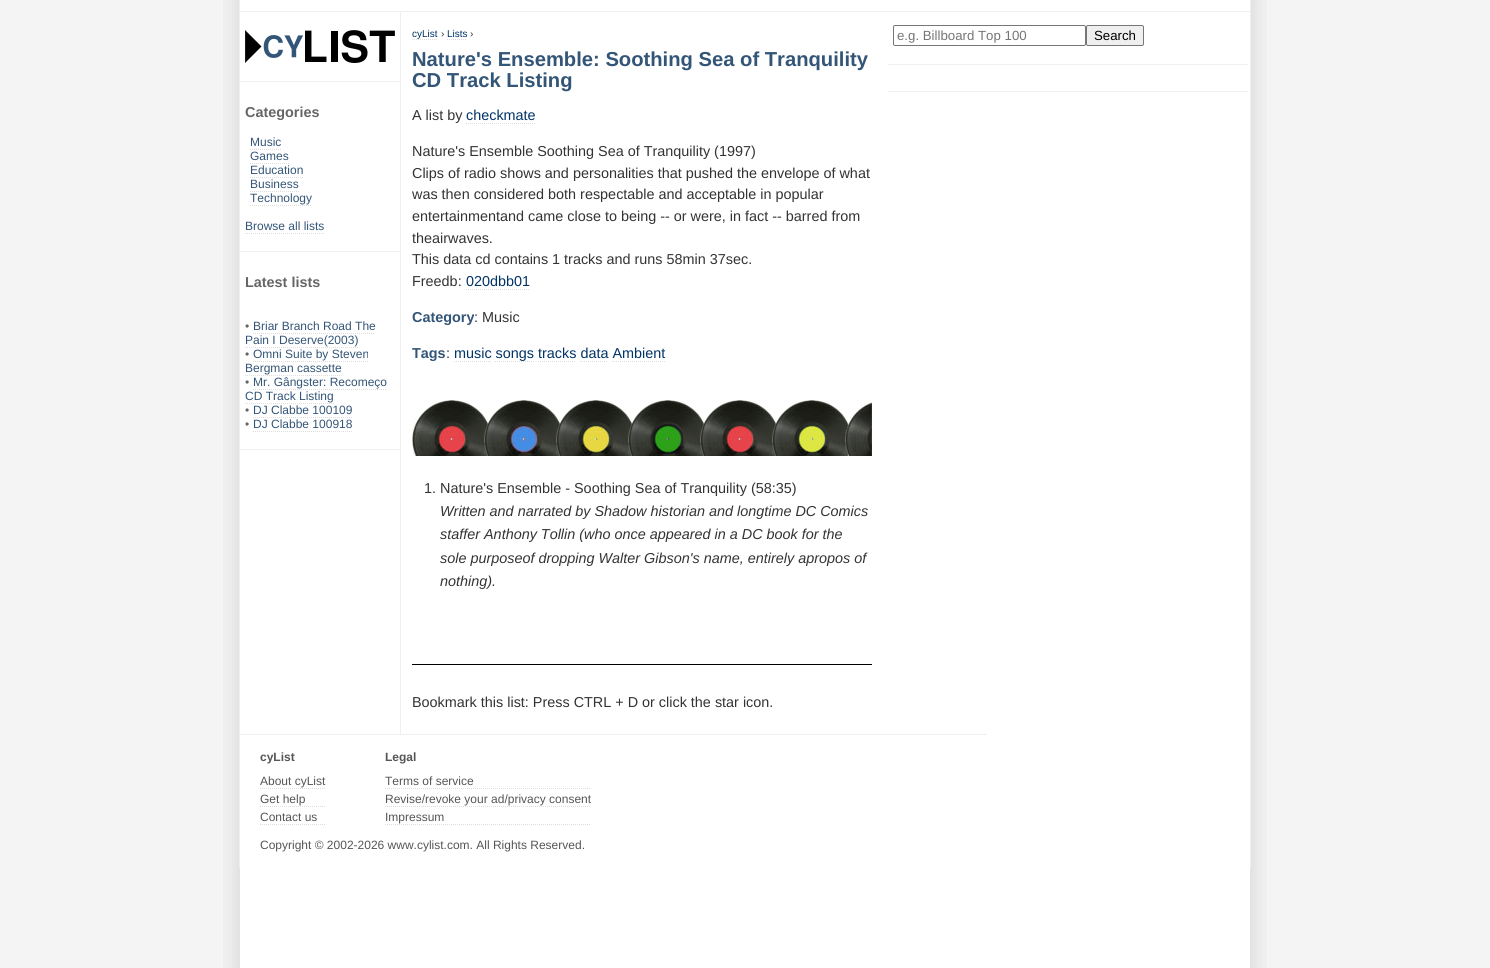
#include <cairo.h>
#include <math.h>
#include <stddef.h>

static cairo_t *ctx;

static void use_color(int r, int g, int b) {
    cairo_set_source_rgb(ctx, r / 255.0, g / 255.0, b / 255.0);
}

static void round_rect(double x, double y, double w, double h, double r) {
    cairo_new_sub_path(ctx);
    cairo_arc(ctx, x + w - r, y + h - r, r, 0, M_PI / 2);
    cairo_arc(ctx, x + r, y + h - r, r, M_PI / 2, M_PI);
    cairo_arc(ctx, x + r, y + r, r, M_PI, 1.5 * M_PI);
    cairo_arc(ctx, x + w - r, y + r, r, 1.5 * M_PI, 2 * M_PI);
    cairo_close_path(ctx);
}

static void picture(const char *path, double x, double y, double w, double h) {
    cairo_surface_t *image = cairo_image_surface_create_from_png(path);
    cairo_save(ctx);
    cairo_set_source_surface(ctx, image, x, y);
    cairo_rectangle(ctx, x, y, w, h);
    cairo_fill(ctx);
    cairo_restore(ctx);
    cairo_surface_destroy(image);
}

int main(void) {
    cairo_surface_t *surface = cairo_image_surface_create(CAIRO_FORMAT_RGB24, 1490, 968);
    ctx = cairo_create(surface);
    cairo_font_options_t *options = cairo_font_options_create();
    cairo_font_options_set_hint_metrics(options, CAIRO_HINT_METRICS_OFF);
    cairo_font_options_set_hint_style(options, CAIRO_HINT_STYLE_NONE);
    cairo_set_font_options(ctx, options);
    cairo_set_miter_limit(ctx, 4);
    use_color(244, 244, 244);
    cairo_paint(ctx);
    picture("img1.png", 223, 0, 1044, 968);
    use_color(239, 239, 239);
    cairo_rectangle(ctx, 1250, 0, 1, 868);
    cairo_fill(ctx);
    cairo_rectangle(ctx, 239, 0, 1, 868);
    cairo_fill(ctx);
    cairo_rectangle(ctx, 240, 11, 1010, 1);
    cairo_fill(ctx);
    cairo_rectangle(ctx, 400, 12, 1, 722);
    cairo_fill(ctx);
    cairo_new_path(ctx);
    cairo_move_to(ctx, 412, 39.5);
    cairo_line_to(ctx, 438, 39.5);
    use_color(221, 221, 221);
    cairo_set_line_width(ctx, 1);
    cairo_set_dash(ctx, (double[]){1, 1}, 2, 0);
    cairo_stroke(ctx);
    cairo_select_font_face(ctx, "Liberation Sans", CAIRO_FONT_SLANT_NORMAL, CAIRO_FONT_WEIGHT_NORMAL);
    cairo_set_font_size(ctx, 10);
    use_color(0, 51, 102);
    cairo_move_to(ctx, 412, 37);
    cairo_show_text(ctx, "cyList");
    use_color(51, 51, 51);
    cairo_move_to(ctx, 441, 37);
    cairo_show_text(ctx, "›");
    use_color(0, 51, 102);
    cairo_move_to(ctx, 447, 37);
    cairo_show_text(ctx, "Lists");
    cairo_new_path(ctx);
    cairo_move_to(ctx, 447, 39.5);
    cairo_line_to(ctx, 467, 39.5);
    use_color(221, 221, 221);
    cairo_stroke(ctx);
    use_color(51, 51, 51);
    cairo_move_to(ctx, 470, 37);
    cairo_show_text(ctx, "›");
    cairo_select_font_face(ctx, "Liberation Sans", CAIRO_FONT_SLANT_NORMAL, CAIRO_FONT_WEIGHT_BOLD);
    cairo_set_font_size(ctx, 20.2);
    use_color(51, 85, 119);
    cairo_move_to(ctx, 412, 66);
    cairo_show_text(ctx, "Nature's Ensemble: Soothing Sea of Tranquility");
    cairo_move_to(ctx, 412, 87);
    cairo_show_text(ctx, "CD Track Listing");
    cairo_select_font_face(ctx, "Liberation Sans", CAIRO_FONT_SLANT_NORMAL, CAIRO_FONT_WEIGHT_NORMAL);
    cairo_set_font_size(ctx, 14.4);
    use_color(51, 51, 51);
    cairo_move_to(ctx, 412, 120);
    cairo_show_text(ctx, "A list by");
    use_color(0, 51, 102);
    cairo_move_to(ctx, 466, 120);
    cairo_show_text(ctx, "checkmate");
    cairo_new_path(ctx);
    cairo_move_to(ctx, 466, 123.5);
    cairo_line_to(ctx, 536, 123.5);
    use_color(221, 221, 221);
    cairo_stroke(ctx);
    use_color(51, 51, 51);
    cairo_move_to(ctx, 412, 156);
    cairo_show_text(ctx, "Nature's Ensemble Soothing Sea of Tranquility (1997)");
    cairo_move_to(ctx, 412, 178);
    cairo_show_text(ctx, "Clips of radio shows and personalities that pushed the envelope of what");
    cairo_move_to(ctx, 412, 199);
    cairo_show_text(ctx, "was then considered both respectable and acceptable in popular");
    cairo_move_to(ctx, 412, 221);
    cairo_show_text(ctx, "entertainmentand came close to being -- or were, in fact -- barred from");
    cairo_move_to(ctx, 412, 243);
    cairo_show_text(ctx, "theairwaves.");
    cairo_move_to(ctx, 412, 264);
    cairo_show_text(ctx, "This data cd contains 1 tracks and runs 58min 37sec.");
    cairo_move_to(ctx, 412, 286);
    cairo_show_text(ctx, "Freedb:");
    use_color(0, 51, 102);
    cairo_move_to(ctx, 466, 286);
    cairo_show_text(ctx, "020dbb01");
    cairo_new_path(ctx);
    cairo_move_to(ctx, 466, 289.5);
    cairo_line_to(ctx, 530, 289.5);
    use_color(221, 221, 221);
    cairo_stroke(ctx);
    cairo_select_font_face(ctx, "Liberation Sans", CAIRO_FONT_SLANT_NORMAL, CAIRO_FONT_WEIGHT_BOLD);
    use_color(51, 85, 119);
    cairo_move_to(ctx, 412, 322);
    cairo_show_text(ctx, "Category");
    cairo_select_font_face(ctx, "Liberation Sans", CAIRO_FONT_SLANT_NORMAL, CAIRO_FONT_WEIGHT_NORMAL);
    use_color(51, 51, 51);
    cairo_move_to(ctx, 474, 322);
    cairo_show_text(ctx, ": Music");
    cairo_select_font_face(ctx, "Liberation Sans", CAIRO_FONT_SLANT_NORMAL, CAIRO_FONT_WEIGHT_BOLD);
    use_color(51, 85, 119);
    cairo_move_to(ctx, 412, 358);
    cairo_show_text(ctx, "Tags");
    cairo_select_font_face(ctx, "Liberation Sans", CAIRO_FONT_SLANT_NORMAL, CAIRO_FONT_WEIGHT_NORMAL);
    use_color(51, 51, 51);
    cairo_move_to(ctx, 446, 358);
    cairo_show_text(ctx, ":");
    use_color(0, 51, 102);
    cairo_move_to(ctx, 454, 358);
    cairo_show_text(ctx, "music songs tracks data Ambient");
    cairo_new_path(ctx);
    cairo_move_to(ctx, 454, 361.5);
    cairo_line_to(ctx, 491, 361.5);
    use_color(221, 221, 221);
    cairo_stroke(ctx);
    cairo_new_path(ctx);
    cairo_move_to(ctx, 495, 361.5);
    cairo_line_to(ctx, 534, 361.5);
    cairo_stroke(ctx);
    cairo_new_path(ctx);
    cairo_move_to(ctx, 538, 361.5);
    cairo_line_to(ctx, 576, 361.5);
    cairo_stroke(ctx);
    cairo_new_path(ctx);
    cairo_move_to(ctx, 580, 361.5);
    cairo_line_to(ctx, 608, 361.5);
    cairo_stroke(ctx);
    cairo_new_path(ctx);
    cairo_move_to(ctx, 612, 361.5);
    cairo_line_to(ctx, 665, 361.5);
    cairo_stroke(ctx);
    picture("img2.png", 412, 400, 460, 56);
    use_color(51, 51, 51);
    cairo_move_to(ctx, 424, 493);
    cairo_show_text(ctx, "1. Nature's Ensemble - Soothing Sea of Tranquility (58:35)");
    cairo_select_font_face(ctx, "Liberation Sans", CAIRO_FONT_SLANT_ITALIC, CAIRO_FONT_WEIGHT_NORMAL);
    cairo_move_to(ctx, 440, 516);
    cairo_show_text(ctx, "Written and narrated by Shadow historian and longtime DC Comics");
    cairo_move_to(ctx, 440, 539);
    cairo_show_text(ctx, "staffer Anthony Tollin (who once appeared in a DC book for the");
    cairo_move_to(ctx, 440, 563);
    cairo_show_text(ctx, "sole purposeof dropping Walter Gibson's name, entirely apropos of");
    cairo_move_to(ctx, 440, 586);
    cairo_show_text(ctx, "nothing).");
    use_color(0, 0, 0);
    cairo_rectangle(ctx, 412, 664, 460, 1);
    cairo_fill(ctx);
    cairo_select_font_face(ctx, "Liberation Sans", CAIRO_FONT_SLANT_NORMAL, CAIRO_FONT_WEIGHT_NORMAL);
    use_color(51, 51, 51);
    cairo_move_to(ctx, 412, 707);
    cairo_show_text(ctx, "Bookmark this list: Press CTRL + D or click the star icon.");
    use_color(239, 239, 239);
    cairo_rectangle(ctx, 888, 64, 360, 1);
    cairo_fill(ctx);
    round_rect(893.5, 25.5, 192, 20, 1.5);
    use_color(118, 118, 118);
    cairo_set_dash(ctx, NULL, 0, 0);
    cairo_stroke(ctx);
    cairo_set_font_size(ctx, 13.25);
    use_color(117, 117, 117);
    cairo_move_to(ctx, 897, 40);
    cairo_show_text(ctx, "e.g. Billboard Top 100");
    use_color(239, 239, 239);
    round_rect(1086.5, 25.5, 57, 20, 1.5);
    cairo_fill_preserve(ctx);
    use_color(118, 118, 118);
    cairo_stroke(ctx);
    use_color(0, 0, 0);
    cairo_move_to(ctx, 1094, 40);
    cairo_show_text(ctx, "Search");
    use_color(239, 239, 239);
    cairo_rectangle(ctx, 888, 91, 360, 1);
    cairo_fill(ctx);
    cairo_rectangle(ctx, 240, 81, 160, 1);
    cairo_fill(ctx);
    picture("img3.png", 245, 30, 150, 33);
    cairo_rectangle(ctx, 240, 251, 160, 1);
    cairo_fill(ctx);
    cairo_select_font_face(ctx, "Liberation Sans", CAIRO_FONT_SLANT_NORMAL, CAIRO_FONT_WEIGHT_BOLD);
    cairo_set_font_size(ctx, 14.4);
    use_color(102, 102, 102);
    cairo_move_to(ctx, 245, 117);
    cairo_show_text(ctx, "Categories");
    cairo_select_font_face(ctx, "Liberation Sans", CAIRO_FONT_SLANT_NORMAL, CAIRO_FONT_WEIGHT_NORMAL);
    cairo_set_font_size(ctx, 12);
    use_color(51, 85, 119);
    cairo_move_to(ctx, 250, 146);
    cairo_show_text(ctx, "Music");
    cairo_new_path(ctx);
    cairo_move_to(ctx, 250, 149.5);
    cairo_line_to(ctx, 281, 149.5);
    use_color(221, 221, 221);
    cairo_set_dash(ctx, (double[]){1, 1}, 2, 0);
    cairo_stroke(ctx);
    use_color(51, 85, 119);
    cairo_move_to(ctx, 250, 160);
    cairo_show_text(ctx, "Games");
    cairo_new_path(ctx);
    cairo_move_to(ctx, 250, 163.5);
    cairo_line_to(ctx, 289, 163.5);
    use_color(221, 221, 221);
    cairo_stroke(ctx);
    use_color(51, 85, 119);
    cairo_move_to(ctx, 250, 174);
    cairo_show_text(ctx, "Education");
    cairo_new_path(ctx);
    cairo_move_to(ctx, 250, 177.5);
    cairo_line_to(ctx, 303, 177.5);
    use_color(221, 221, 221);
    cairo_stroke(ctx);
    use_color(51, 85, 119);
    cairo_move_to(ctx, 250, 188);
    cairo_show_text(ctx, "Business");
    cairo_new_path(ctx);
    cairo_move_to(ctx, 250, 191.5);
    cairo_line_to(ctx, 299, 191.5);
    use_color(221, 221, 221);
    cairo_stroke(ctx);
    use_color(51, 85, 119);
    cairo_move_to(ctx, 250, 202);
    cairo_show_text(ctx, "Technology");
    cairo_new_path(ctx);
    cairo_move_to(ctx, 250, 205.5);
    cairo_line_to(ctx, 312, 205.5);
    use_color(221, 221, 221);
    cairo_stroke(ctx);
    use_color(51, 85, 119);
    cairo_move_to(ctx, 245, 230);
    cairo_show_text(ctx, "Browse all lists");
    cairo_new_path(ctx);
    cairo_move_to(ctx, 245, 233.5);
    cairo_line_to(ctx, 324, 233.5);
    use_color(221, 221, 221);
    cairo_stroke(ctx);
    use_color(239, 239, 239);
    cairo_rectangle(ctx, 240, 449, 160, 1);
    cairo_fill(ctx);
    cairo_select_font_face(ctx, "Liberation Sans", CAIRO_FONT_SLANT_NORMAL, CAIRO_FONT_WEIGHT_BOLD);
    cairo_set_font_size(ctx, 14.4);
    use_color(102, 102, 102);
    cairo_move_to(ctx, 245, 287);
    cairo_show_text(ctx, "Latest lists");
    cairo_select_font_face(ctx, "Liberation Sans", CAIRO_FONT_SLANT_NORMAL, CAIRO_FONT_WEIGHT_NORMAL);
    cairo_set_font_size(ctx, 12);
    cairo_move_to(ctx, 245, 330);
    cairo_show_text(ctx, "•");
    use_color(51, 85, 119);
    cairo_move_to(ctx, 253, 330);
    cairo_show_text(ctx, "Briar Branch Road The");
    cairo_new_path(ctx);
    cairo_move_to(ctx, 253, 333.5);
    cairo_line_to(ctx, 375, 333.5);
    use_color(221, 221, 221);
    cairo_stroke(ctx);
    use_color(51, 85, 119);
    cairo_move_to(ctx, 245, 344);
    cairo_show_text(ctx, "Pain I Deserve(2003)");
    cairo_new_path(ctx);
    cairo_move_to(ctx, 245, 347.5);
    cairo_line_to(ctx, 358, 347.5);
    use_color(221, 221, 221);
    cairo_stroke(ctx);
    use_color(102, 102, 102);
    cairo_move_to(ctx, 245, 358);
    cairo_show_text(ctx, "•");
    use_color(51, 85, 119);
    cairo_move_to(ctx, 253, 358);
    cairo_show_text(ctx, "Omni Suite by Steven");
    cairo_new_path(ctx);
    cairo_move_to(ctx, 253, 361.5);
    cairo_line_to(ctx, 369, 361.5);
    use_color(221, 221, 221);
    cairo_stroke(ctx);
    use_color(51, 85, 119);
    cairo_move_to(ctx, 245, 372);
    cairo_show_text(ctx, "Bergman cassette");
    cairo_new_path(ctx);
    cairo_move_to(ctx, 245, 375.5);
    cairo_line_to(ctx, 342, 375.5);
    use_color(221, 221, 221);
    cairo_stroke(ctx);
    use_color(102, 102, 102);
    cairo_move_to(ctx, 245, 386);
    cairo_show_text(ctx, "•");
    use_color(51, 85, 119);
    cairo_move_to(ctx, 253, 386);
    cairo_show_text(ctx, "Mr. Gângster: Recomeço");
    cairo_new_path(ctx);
    cairo_move_to(ctx, 253, 389.5);
    cairo_line_to(ctx, 387, 389.5);
    use_color(221, 221, 221);
    cairo_stroke(ctx);
    use_color(51, 85, 119);
    cairo_move_to(ctx, 245, 400);
    cairo_show_text(ctx, "CD Track Listing");
    cairo_new_path(ctx);
    cairo_move_to(ctx, 245, 403.5);
    cairo_line_to(ctx, 334, 403.5);
    use_color(221, 221, 221);
    cairo_stroke(ctx);
    use_color(102, 102, 102);
    cairo_move_to(ctx, 245, 414);
    cairo_show_text(ctx, "•");
    use_color(51, 85, 119);
    cairo_move_to(ctx, 253, 414);
    cairo_show_text(ctx, "DJ Clabbe 100109");
    cairo_new_path(ctx);
    cairo_move_to(ctx, 253, 417.5);
    cairo_line_to(ctx, 352, 417.5);
    use_color(221, 221, 221);
    cairo_stroke(ctx);
    use_color(102, 102, 102);
    cairo_move_to(ctx, 245, 428);
    cairo_show_text(ctx, "•");
    use_color(51, 85, 119);
    cairo_move_to(ctx, 253, 428);
    cairo_show_text(ctx, "DJ Clabbe 100918");
    cairo_new_path(ctx);
    cairo_move_to(ctx, 253, 431.5);
    cairo_line_to(ctx, 352, 431.5);
    use_color(221, 221, 221);
    cairo_stroke(ctx);
    use_color(239, 239, 239);
    cairo_rectangle(ctx, 240, 734, 747, 1);
    cairo_fill(ctx);
    cairo_select_font_face(ctx, "Liberation Sans", CAIRO_FONT_SLANT_NORMAL, CAIRO_FONT_WEIGHT_BOLD);
    use_color(85, 85, 85);
    cairo_move_to(ctx, 260, 761);
    cairo_show_text(ctx, "cyList");
    cairo_new_path(ctx);
    cairo_move_to(ctx, 260, 788.5);
    cairo_line_to(ctx, 325, 788.5);
    use_color(221, 221, 221);
    cairo_stroke(ctx);
    cairo_select_font_face(ctx, "Liberation Sans", CAIRO_FONT_SLANT_NORMAL, CAIRO_FONT_WEIGHT_NORMAL);
    use_color(85, 85, 85);
    cairo_move_to(ctx, 260, 785);
    cairo_show_text(ctx, "About cyList");
    cairo_new_path(ctx);
    cairo_move_to(ctx, 260, 806.5);
    cairo_line_to(ctx, 325, 806.5);
    use_color(221, 221, 221);
    cairo_stroke(ctx);
    use_color(85, 85, 85);
    cairo_move_to(ctx, 260, 803);
    cairo_show_text(ctx, "Get help");
    cairo_new_path(ctx);
    cairo_move_to(ctx, 260, 824.5);
    cairo_line_to(ctx, 325, 824.5);
    use_color(221, 221, 221);
    cairo_stroke(ctx);
    use_color(85, 85, 85);
    cairo_move_to(ctx, 260, 821);
    cairo_show_text(ctx, "Contact us");
    cairo_select_font_face(ctx, "Liberation Sans", CAIRO_FONT_SLANT_NORMAL, CAIRO_FONT_WEIGHT_BOLD);
    cairo_move_to(ctx, 385, 761);
    cairo_show_text(ctx, "Legal");
    cairo_new_path(ctx);
    cairo_move_to(ctx, 385, 788.5);
    cairo_line_to(ctx, 591, 788.5);
    use_color(221, 221, 221);
    cairo_stroke(ctx);
    cairo_select_font_face(ctx, "Liberation Sans", CAIRO_FONT_SLANT_NORMAL, CAIRO_FONT_WEIGHT_NORMAL);
    use_color(85, 85, 85);
    cairo_move_to(ctx, 385, 785);
    cairo_show_text(ctx, "Terms of service");
    cairo_new_path(ctx);
    cairo_move_to(ctx, 385, 806.5);
    cairo_line_to(ctx, 591, 806.5);
    use_color(221, 221, 221);
    cairo_stroke(ctx);
    use_color(85, 85, 85);
    cairo_move_to(ctx, 385, 803);
    cairo_show_text(ctx, "Revise/revoke your ad/privacy consent");
    cairo_new_path(ctx);
    cairo_move_to(ctx, 385, 824.5);
    cairo_line_to(ctx, 591, 824.5);
    use_color(221, 221, 221);
    cairo_stroke(ctx);
    use_color(85, 85, 85);
    cairo_move_to(ctx, 385, 821);
    cairo_show_text(ctx, "Impressum");
    cairo_move_to(ctx, 260, 849);
    cairo_show_text(ctx, "Copyright © 2002-2026 www.cylist.com. All Rights Reserved.");
    cairo_surface_write_to_png(surface, "result.png");
    cairo_font_options_destroy(options);
    cairo_destroy(ctx);
    cairo_surface_destroy(surface);
    return 0;
}
